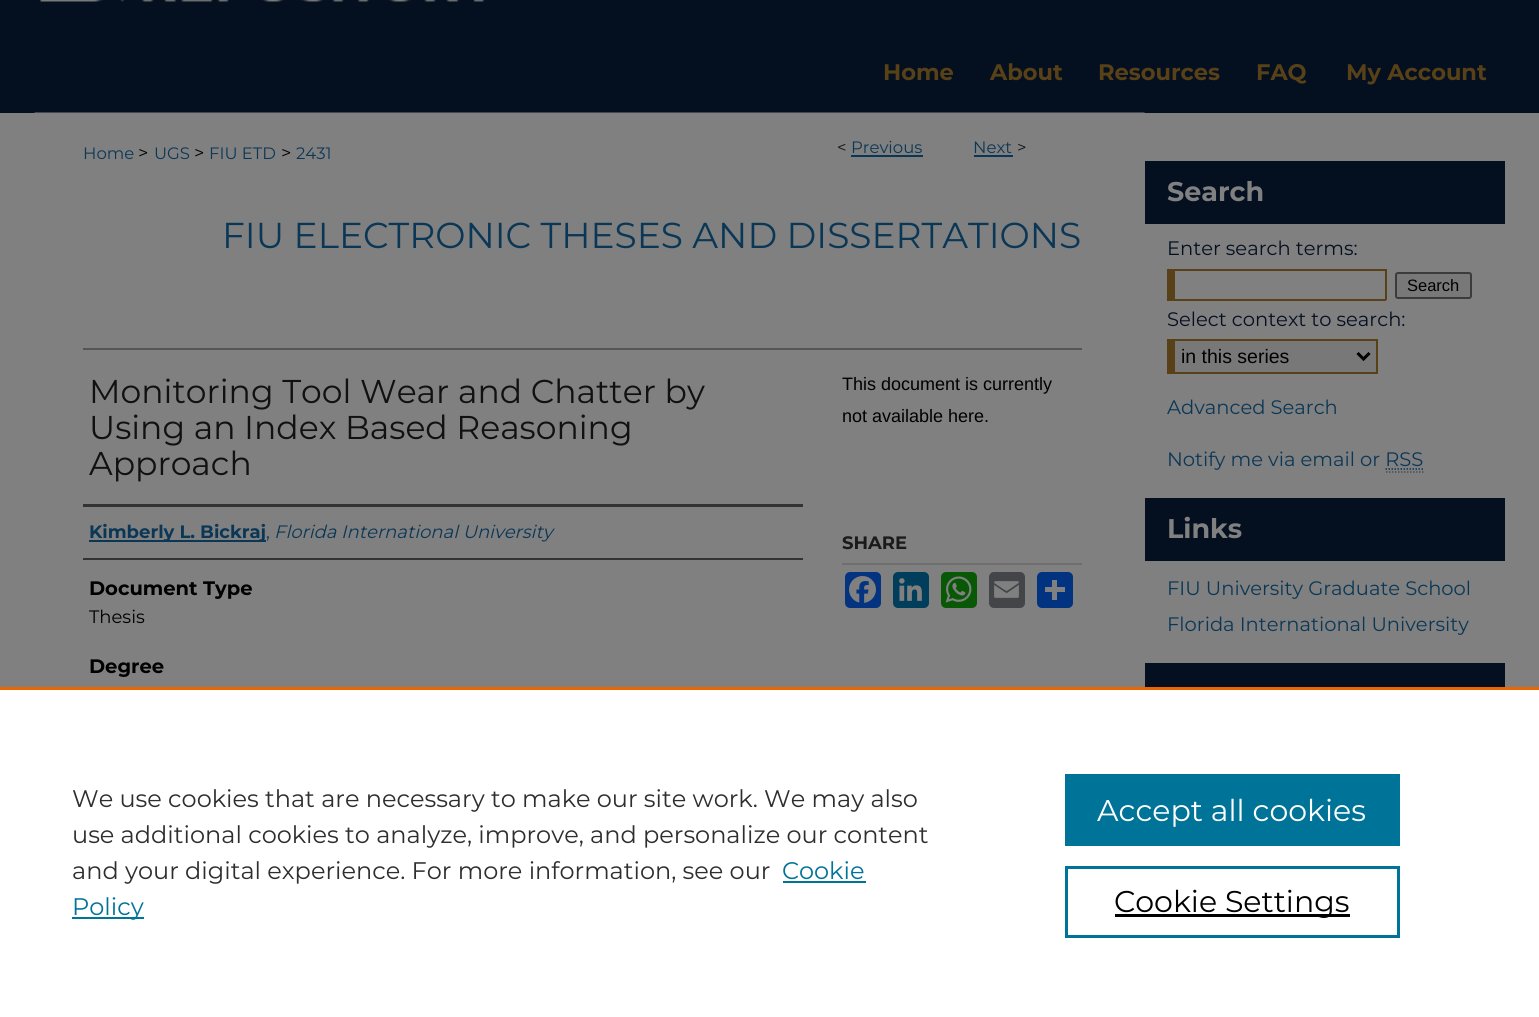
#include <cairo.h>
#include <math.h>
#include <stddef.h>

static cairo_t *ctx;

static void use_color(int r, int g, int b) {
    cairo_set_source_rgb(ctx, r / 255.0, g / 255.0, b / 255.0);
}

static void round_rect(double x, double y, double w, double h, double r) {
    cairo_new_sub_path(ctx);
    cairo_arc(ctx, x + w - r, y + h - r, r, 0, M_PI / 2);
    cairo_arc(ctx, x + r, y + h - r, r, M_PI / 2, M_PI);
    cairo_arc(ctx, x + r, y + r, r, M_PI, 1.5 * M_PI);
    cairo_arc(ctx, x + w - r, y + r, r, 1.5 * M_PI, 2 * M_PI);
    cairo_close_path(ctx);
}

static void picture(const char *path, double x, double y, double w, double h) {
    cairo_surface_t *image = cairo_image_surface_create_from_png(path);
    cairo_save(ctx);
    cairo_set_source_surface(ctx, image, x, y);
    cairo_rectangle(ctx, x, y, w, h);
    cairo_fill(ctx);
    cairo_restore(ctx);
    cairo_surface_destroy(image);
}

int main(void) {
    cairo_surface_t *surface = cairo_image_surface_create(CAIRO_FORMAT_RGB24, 1539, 1017);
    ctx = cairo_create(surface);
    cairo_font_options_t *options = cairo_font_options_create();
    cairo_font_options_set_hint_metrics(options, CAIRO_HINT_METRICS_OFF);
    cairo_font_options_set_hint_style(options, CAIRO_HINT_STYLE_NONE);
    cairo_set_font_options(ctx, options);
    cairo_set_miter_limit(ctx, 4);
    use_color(128, 128, 128);
    cairo_paint(ctx);
    use_color(4, 15, 32);
    cairo_rectangle(ctx, 0, 0, 1539, 113);
    cairo_fill(ctx);
    picture("img1.png", 40, 0, 445, 2);
    cairo_select_font_face(ctx, "Montserrat", CAIRO_FONT_SLANT_NORMAL, CAIRO_FONT_WEIGHT_BOLD);
    cairo_set_font_size(ctx, 22.5);
    use_color(88, 65, 22);
    cairo_move_to(ctx, 883, 80);
    cairo_show_text(ctx, "Home");
    cairo_move_to(ctx, 990, 80);
    cairo_show_text(ctx, "About");
    cairo_move_to(ctx, 1098, 80);
    cairo_show_text(ctx, "Resources");
    cairo_move_to(ctx, 1256, 80);
    cairo_show_text(ctx, "FAQ");
    cairo_move_to(ctx, 1346, 80);
    cairo_show_text(ctx, "My Account");
    picture("img2.png", 34, 112, 1111, 1);
    cairo_select_font_face(ctx, "Montserrat", CAIRO_FONT_SLANT_NORMAL, CAIRO_FONT_WEIGHT_NORMAL);
    cairo_set_font_size(ctx, 16.5);
    use_color(11, 55, 86);
    cairo_move_to(ctx, 83, 159);
    cairo_show_text(ctx, "Home");
    cairo_set_font_size(ctx, 18);
    use_color(0, 0, 0);
    cairo_move_to(ctx, 138, 159);
    cairo_show_text(ctx, ">");
    cairo_set_font_size(ctx, 16.5);
    use_color(11, 55, 86);
    cairo_move_to(ctx, 154, 159);
    cairo_show_text(ctx, "UGS");
    cairo_set_font_size(ctx, 18);
    use_color(0, 0, 0);
    cairo_move_to(ctx, 194, 159);
    cairo_show_text(ctx, ">");
    cairo_set_font_size(ctx, 16.5);
    use_color(11, 55, 86);
    cairo_move_to(ctx, 209, 159);
    cairo_show_text(ctx, "FIU ETD");
    cairo_set_font_size(ctx, 18);
    use_color(0, 0, 0);
    cairo_move_to(ctx, 281, 159);
    cairo_show_text(ctx, ">");
    cairo_set_font_size(ctx, 16.5);
    use_color(11, 55, 86);
    cairo_move_to(ctx, 296, 159);
    cairo_show_text(ctx, "2431");
    use_color(17, 17, 17);
    cairo_move_to(ctx, 837, 153);
    cairo_show_text(ctx, "<");
    use_color(11, 55, 86);
    cairo_move_to(ctx, 851, 153);
    cairo_show_text(ctx, "Previous");
    cairo_rectangle(ctx, 851, 155, 72, 2);
    cairo_fill(ctx);
    cairo_move_to(ctx, 973, 153);
    cairo_show_text(ctx, "Next");
    cairo_rectangle(ctx, 974, 155, 39, 2);
    cairo_fill(ctx);
    use_color(17, 17, 17);
    cairo_move_to(ctx, 1017, 153);
    cairo_show_text(ctx, ">");
    cairo_set_font_size(ctx, 36);
    use_color(11, 55, 86);
    cairo_move_to(ctx, 222, 248);
    cairo_show_text(ctx, "FIU ELECTRONIC THESES AND DISSERTATIONS");
    use_color(85, 85, 85);
    cairo_rectangle(ctx, 83, 348, 999, 2);
    cairo_fill(ctx);
    cairo_set_font_size(ctx, 33);
    use_color(17, 17, 17);
    cairo_move_to(ctx, 89, 403);
    cairo_show_text(ctx, "Monitoring Tool Wear and Chatter by");
    cairo_move_to(ctx, 89, 439);
    cairo_show_text(ctx, "Using an Index Based Reasoning");
    cairo_move_to(ctx, 89, 475);
    cairo_show_text(ctx, "Approach");
    use_color(51, 51, 51);
    cairo_rectangle(ctx, 83, 504, 720, 3);
    cairo_fill(ctx);
    cairo_rectangle(ctx, 83, 558, 720, 2);
    cairo_fill(ctx);
    use_color(11, 55, 86);
    cairo_rectangle(ctx, 89, 540, 177, 2);
    cairo_fill(ctx);
    cairo_select_font_face(ctx, "Montserrat", CAIRO_FONT_SLANT_NORMAL, CAIRO_FONT_WEIGHT_BOLD);
    cairo_set_font_size(ctx, 18);
    cairo_move_to(ctx, 89, 538);
    cairo_show_text(ctx, "Kimberly L. Bickraj");
    cairo_select_font_face(ctx, "Montserrat", CAIRO_FONT_SLANT_NORMAL, CAIRO_FONT_WEIGHT_NORMAL);
    cairo_move_to(ctx, 266, 538);
    cairo_show_text(ctx, ",");
    cairo_select_font_face(ctx, "Montserrat", CAIRO_FONT_SLANT_ITALIC, CAIRO_FONT_WEIGHT_NORMAL);
    cairo_move_to(ctx, 274, 538);
    cairo_show_text(ctx, "Florida International University");
    cairo_select_font_face(ctx, "Montserrat", CAIRO_FONT_SLANT_NORMAL, CAIRO_FONT_WEIGHT_BOLD);
    cairo_set_font_size(ctx, 19.5);
    use_color(0, 0, 0);
    cairo_move_to(ctx, 89, 595);
    cairo_show_text(ctx, "Document Type");
    cairo_select_font_face(ctx, "Montserrat", CAIRO_FONT_SLANT_NORMAL, CAIRO_FONT_WEIGHT_NORMAL);
    cairo_set_font_size(ctx, 18);
    cairo_move_to(ctx, 89, 623);
    cairo_show_text(ctx, "Thesis");
    cairo_select_font_face(ctx, "Montserrat", CAIRO_FONT_SLANT_NORMAL, CAIRO_FONT_WEIGHT_BOLD);
    cairo_set_font_size(ctx, 19.5);
    cairo_move_to(ctx, 89, 673);
    cairo_show_text(ctx, "Degree");
    cairo_select_font_face(ctx, "Liberation Sans", CAIRO_FONT_SLANT_NORMAL, CAIRO_FONT_WEIGHT_NORMAL);
    cairo_set_font_size(ctx, 18);
    cairo_move_to(ctx, 842, 390);
    cairo_show_text(ctx, "This document is currently");
    cairo_move_to(ctx, 842, 422);
    cairo_show_text(ctx, "not available here.");
    use_color(111, 111, 111);
    cairo_rectangle(ctx, 842, 563, 240, 2);
    cairo_fill(ctx);
    cairo_select_font_face(ctx, "Montserrat", CAIRO_FONT_SLANT_NORMAL, CAIRO_FONT_WEIGHT_BOLD);
    use_color(26, 26, 26);
    cairo_move_to(ctx, 842, 549);
    cairo_show_text(ctx, "SHARE");
    use_color(4, 51, 128);
    round_rect(845, 572, 36, 36, 5);
    cairo_fill(ctx);
    picture("img3.png", 849, 576, 27, 27);
    use_color(0, 62, 91);
    round_rect(893, 572, 36, 36, 5);
    cairo_fill(ctx);
    picture("img4.png", 899, 578, 23, 23);
    use_color(9, 88, 5);
    round_rect(941, 572, 36, 36, 5);
    cairo_fill(ctx);
    picture("img5.png", 945, 576, 27, 27);
    use_color(68, 69, 72);
    round_rect(989, 572, 36, 36, 5);
    cairo_fill(ctx);
    picture("img6.png", 994, 581, 25, 17);
    use_color(1, 51, 128);
    round_rect(1037, 572, 36, 36, 5);
    cairo_fill(ctx);
    use_color(128, 128, 128);
    cairo_rectangle(ctx, 1052, 580, 5, 20);
    cairo_fill(ctx);
    cairo_rectangle(ctx, 1045, 587, 20, 5);
    cairo_fill(ctx);
    use_color(4, 15, 32);
    cairo_rectangle(ctx, 1145, 161, 360, 63);
    cairo_fill(ctx);
    cairo_set_font_size(ctx, 27);
    use_color(128, 128, 128);
    cairo_move_to(ctx, 1167, 201);
    cairo_show_text(ctx, "Search");
    cairo_select_font_face(ctx, "Montserrat", CAIRO_FONT_SLANT_NORMAL, CAIRO_FONT_WEIGHT_NORMAL);
    cairo_set_font_size(ctx, 19.5);
    use_color(4, 15, 32);
    cairo_move_to(ctx, 1167, 255);
    cairo_show_text(ctx, "Enter search terms:");
    use_color(88, 65, 22);
    cairo_rectangle(ctx, 1167, 269, 219, 2);
    cairo_fill(ctx);
    cairo_rectangle(ctx, 1385, 269, 2, 31);
    cairo_fill(ctx);
    cairo_rectangle(ctx, 1167, 299, 219, 2);
    cairo_fill(ctx);
    cairo_rectangle(ctx, 1167, 269, 8, 31);
    cairo_fill(ctx);
    use_color(120, 120, 120);
    round_rect(1396, 273, 75, 25, 2);
    cairo_fill_preserve(ctx);
    use_color(59, 59, 59);
    cairo_stroke(ctx);
    cairo_select_font_face(ctx, "Liberation Sans", CAIRO_FONT_SLANT_NORMAL, CAIRO_FONT_WEIGHT_NORMAL);
    cairo_set_font_size(ctx, 16.5);
    use_color(0, 0, 0);
    cairo_move_to(ctx, 1407, 291);
    cairo_show_text(ctx, "Search");
    cairo_select_font_face(ctx, "Montserrat", CAIRO_FONT_SLANT_NORMAL, CAIRO_FONT_WEIGHT_NORMAL);
    cairo_set_font_size(ctx, 19.5);
    use_color(4, 15, 32);
    cairo_move_to(ctx, 1167, 326);
    cairo_show_text(ctx, "Select context to search:");
    use_color(120, 120, 120);
    cairo_rectangle(ctx, 1175, 341, 201, 31);
    cairo_fill(ctx);
    use_color(88, 65, 22);
    cairo_rectangle(ctx, 1167, 339, 210, 2);
    cairo_fill(ctx);
    cairo_rectangle(ctx, 1376, 339, 2, 35);
    cairo_fill(ctx);
    cairo_rectangle(ctx, 1167, 372, 210, 2);
    cairo_fill(ctx);
    cairo_rectangle(ctx, 1167, 339, 8, 35);
    cairo_fill(ctx);
    cairo_new_path(ctx);
    cairo_move_to(ctx, 1357.5, 353);
    cairo_line_to(ctx, 1363.5, 359);
    cairo_line_to(ctx, 1369.5, 353);
    use_color(0, 0, 0);
    cairo_set_line_width(ctx, 3);
    cairo_stroke(ctx);
    cairo_select_font_face(ctx, "Liberation Sans", CAIRO_FONT_SLANT_NORMAL, CAIRO_FONT_WEIGHT_NORMAL);
    cairo_move_to(ctx, 1181, 363);
    cairo_show_text(ctx, "in this series");
    cairo_select_font_face(ctx, "Montserrat", CAIRO_FONT_SLANT_NORMAL, CAIRO_FONT_WEIGHT_NORMAL);
    use_color(11, 55, 86);
    cairo_move_to(ctx, 1167, 414);
    cairo_show_text(ctx, "Advanced Search");
    cairo_move_to(ctx, 1167, 466);
    cairo_show_text(ctx, "Notify me via email or RSS");
    cairo_new_path(ctx);
    cairo_move_to(ctx, 1385.5, 469);
    cairo_line_to(ctx, 1423.5, 469);
    cairo_set_line_width(ctx, 1.5);
    cairo_set_dash(ctx, (double[]){1.5, 1.5}, 2, 0);
    cairo_stroke(ctx);
    cairo_new_path(ctx);
    cairo_move_to(ctx, 1386, 472);
    cairo_line_to(ctx, 1423.5, 472);
    use_color(77, 77, 77);
    cairo_stroke(ctx);
    use_color(4, 15, 32);
    cairo_rectangle(ctx, 1145, 498, 360, 63);
    cairo_fill(ctx);
    cairo_select_font_face(ctx, "Montserrat", CAIRO_FONT_SLANT_NORMAL, CAIRO_FONT_WEIGHT_BOLD);
    cairo_set_font_size(ctx, 27);
    use_color(128, 128, 128);
    cairo_move_to(ctx, 1167, 538);
    cairo_show_text(ctx, "Links");
    cairo_select_font_face(ctx, "Montserrat", CAIRO_FONT_SLANT_NORMAL, CAIRO_FONT_WEIGHT_NORMAL);
    cairo_set_font_size(ctx, 19.5);
    use_color(11, 55, 86);
    cairo_move_to(ctx, 1167, 595);
    cairo_show_text(ctx, "FIU University Graduate School");
    cairo_move_to(ctx, 1167, 631);
    cairo_show_text(ctx, "Florida International University");
    use_color(4, 15, 32);
    cairo_rectangle(ctx, 1145, 663, 360, 24);
    cairo_fill(ctx);
    use_color(255, 255, 255);
    cairo_rectangle(ctx, 0, 690, 1539, 327);
    cairo_fill(ctx);
    use_color(235, 101, 0);
    cairo_rectangle(ctx, 0, 687, 1539, 3);
    cairo_fill(ctx);
    cairo_set_font_size(ctx, 24);
    use_color(46, 46, 46);
    cairo_move_to(ctx, 72, 807);
    cairo_show_text(ctx, "We use cookies that are necessary to make our site work. We may also");
    cairo_move_to(ctx, 72, 843);
    cairo_show_text(ctx, "use additional cookies to analyze, improve, and personalize our content");
    cairo_move_to(ctx, 72, 879);
    cairo_show_text(ctx, "and your digital experience. For more information, see our");
    use_color(0, 115, 152);
    cairo_move_to(ctx, 782, 879);
    cairo_show_text(ctx, "Cookie");
    cairo_rectangle(ctx, 783, 881, 83, 2);
    cairo_fill(ctx);
    cairo_rectangle(ctx, 72, 917, 72, 2);
    cairo_fill(ctx);
    cairo_move_to(ctx, 72, 915);
    cairo_show_text(ctx, "Policy");
    cairo_rectangle(ctx, 1065, 774, 335, 72);
    cairo_fill(ctx);
    cairo_set_font_size(ctx, 30);
    use_color(255, 255, 255);
    cairo_move_to(ctx, 1097, 821);
    cairo_show_text(ctx, "Accept all cookies");
    cairo_rectangle(ctx, 1066.5, 867.5, 332, 69);
    use_color(0, 115, 152);
    cairo_set_line_width(ctx, 3);
    cairo_set_dash(ctx, NULL, 0, 0);
    cairo_stroke(ctx);
    use_color(0, 0, 0);
    cairo_rectangle(ctx, 1115, 914, 235, 3);
    cairo_fill(ctx);
    cairo_move_to(ctx, 1114, 912);
    cairo_show_text(ctx, "Cookie Settings");
    cairo_surface_write_to_png(surface, "result.png");
    cairo_font_options_destroy(options);
    cairo_destroy(ctx);
    cairo_surface_destroy(surface);
    return 0;
}
